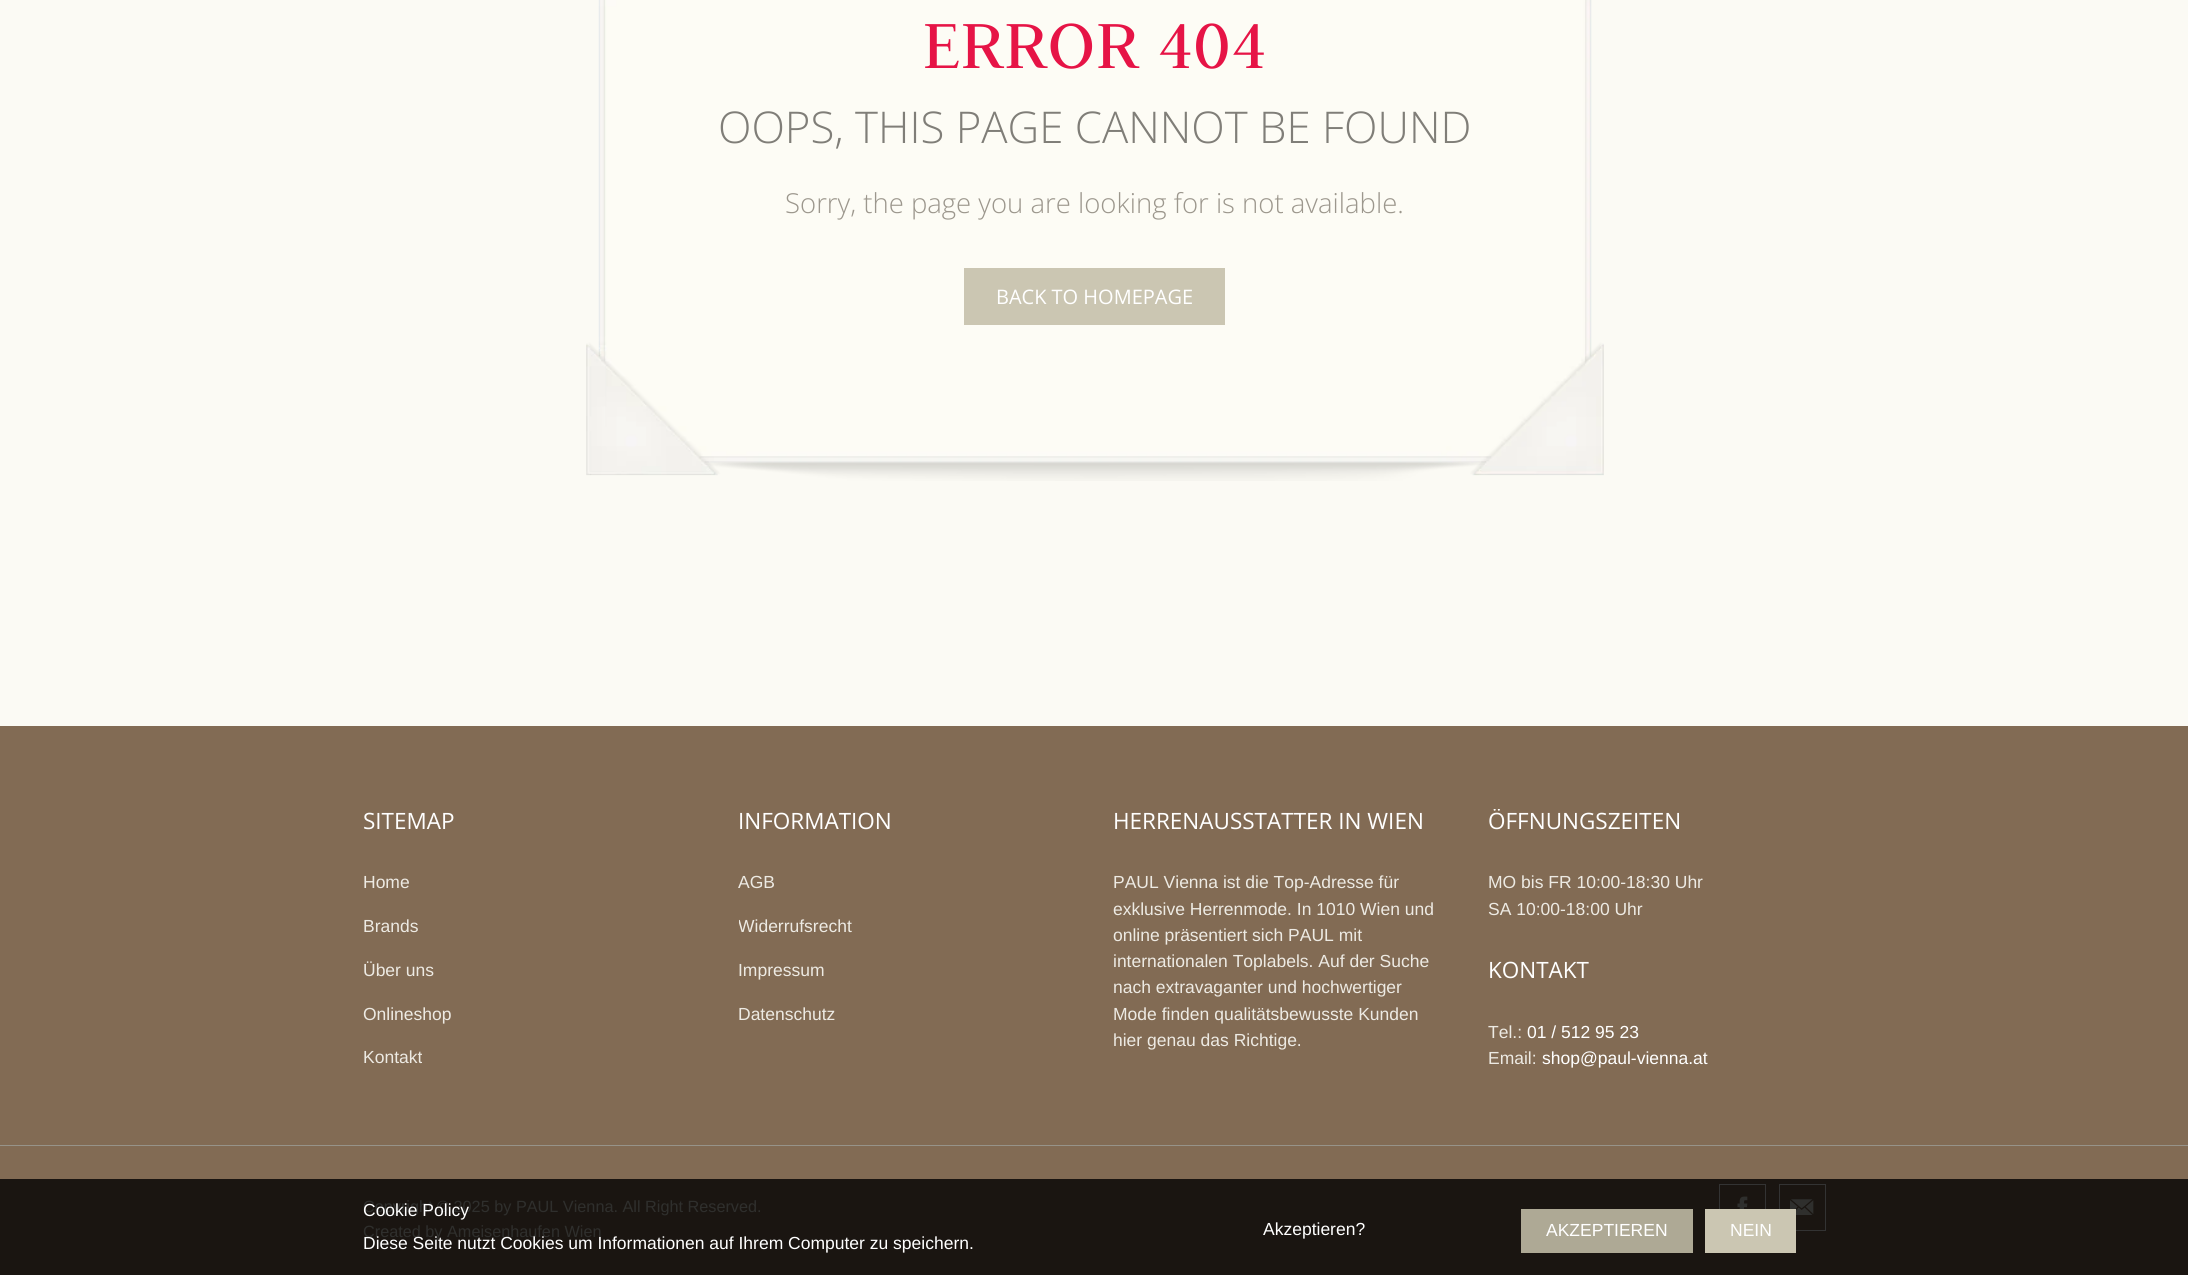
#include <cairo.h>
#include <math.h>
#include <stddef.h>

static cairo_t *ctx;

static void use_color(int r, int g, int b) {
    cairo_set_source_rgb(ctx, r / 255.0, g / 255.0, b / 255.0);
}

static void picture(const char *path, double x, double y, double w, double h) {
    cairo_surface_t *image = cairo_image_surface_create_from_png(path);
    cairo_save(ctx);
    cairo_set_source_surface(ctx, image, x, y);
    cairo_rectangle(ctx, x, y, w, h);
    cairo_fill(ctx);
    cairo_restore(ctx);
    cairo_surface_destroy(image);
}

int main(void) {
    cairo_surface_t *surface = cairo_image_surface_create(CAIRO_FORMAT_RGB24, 2188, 1275);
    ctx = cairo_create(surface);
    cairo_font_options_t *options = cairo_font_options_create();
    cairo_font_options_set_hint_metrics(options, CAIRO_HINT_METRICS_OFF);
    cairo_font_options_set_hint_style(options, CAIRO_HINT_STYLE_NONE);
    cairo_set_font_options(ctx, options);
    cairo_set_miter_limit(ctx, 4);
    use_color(251, 250, 244);
    cairo_paint(ctx);
    picture("img1.png", 586, 0, 1018, 481);
    cairo_select_font_face(ctx, "Judson", CAIRO_FONT_SLANT_NORMAL, CAIRO_FONT_WEIGHT_NORMAL);
    cairo_set_font_size(ctx, 75);
    use_color(230, 20, 70);
    cairo_move_to(ctx, 922, 68);
    cairo_show_text(ctx, "ERROR 404");
    cairo_select_font_face(ctx, "Open Sans Light", CAIRO_FONT_SLANT_NORMAL, CAIRO_FONT_WEIGHT_NORMAL);
    cairo_set_font_size(ctx, 43.75);
    use_color(128, 126, 120);
    cairo_move_to(ctx, 718, 143);
    cairo_show_text(ctx, "OOPS, THIS PAGE CANNOT BE FOUND");
    cairo_set_font_size(ctx, 27.5);
    use_color(156, 151, 141);
    cairo_move_to(ctx, 785, 213);
    cairo_show_text(ctx, "Sorry, the page you are looking for is not available.");
    use_color(203, 198, 178);
    cairo_rectangle(ctx, 964, 268, 261, 57);
    cairo_fill(ctx);
    cairo_select_font_face(ctx, "Open Sans", CAIRO_FONT_SLANT_NORMAL, CAIRO_FONT_WEIGHT_NORMAL);
    cairo_set_font_size(ctx, 20);
    use_color(255, 255, 255);
    cairo_move_to(ctx, 996, 304);
    cairo_show_text(ctx, "BACK TO HOMEPAGE");
    use_color(130, 107, 84);
    cairo_rectangle(ctx, 0, 726, 2188, 453);
    cairo_fill(ctx);
    use_color(26, 21, 17);
    cairo_rectangle(ctx, 0, 1179, 2188, 96);
    cairo_fill(ctx);
    cairo_set_font_size(ctx, 22.5);
    use_color(255, 255, 255);
    cairo_move_to(ctx, 363, 829);
    cairo_show_text(ctx, "SITEMAP");
    cairo_select_font_face(ctx, "Liberation Sans", CAIRO_FONT_SLANT_NORMAL, CAIRO_FONT_WEIGHT_NORMAL);
    cairo_set_font_size(ctx, 17.5);
    use_color(237, 234, 227);
    cairo_move_to(ctx, 363, 888);
    cairo_show_text(ctx, "Home");
    cairo_move_to(ctx, 363, 932);
    cairo_show_text(ctx, "Brands");
    cairo_move_to(ctx, 363, 976);
    cairo_show_text(ctx, "Über uns");
    cairo_move_to(ctx, 363, 1020);
    cairo_show_text(ctx, "Onlineshop");
    cairo_move_to(ctx, 363, 1063);
    cairo_show_text(ctx, "Kontakt");
    cairo_select_font_face(ctx, "Open Sans", CAIRO_FONT_SLANT_NORMAL, CAIRO_FONT_WEIGHT_NORMAL);
    cairo_set_font_size(ctx, 22.5);
    use_color(255, 255, 255);
    cairo_move_to(ctx, 738, 829);
    cairo_show_text(ctx, "INFORMATION");
    cairo_select_font_face(ctx, "Liberation Sans", CAIRO_FONT_SLANT_NORMAL, CAIRO_FONT_WEIGHT_NORMAL);
    cairo_set_font_size(ctx, 17.5);
    use_color(237, 234, 227);
    cairo_move_to(ctx, 738, 888);
    cairo_show_text(ctx, "AGB");
    cairo_save(ctx);
    cairo_rectangle(ctx, 739, 809, 337, 236);
    cairo_clip(ctx);
    cairo_move_to(ctx, 738, 932);
    cairo_show_text(ctx, "Widerrufsrecht");
    cairo_restore(ctx);
    cairo_move_to(ctx, 738, 976);
    cairo_show_text(ctx, "Impressum");
    cairo_move_to(ctx, 738, 1020);
    cairo_show_text(ctx, "Datenschutz");
    cairo_select_font_face(ctx, "Open Sans", CAIRO_FONT_SLANT_NORMAL, CAIRO_FONT_WEIGHT_NORMAL);
    cairo_set_font_size(ctx, 22.5);
    use_color(255, 255, 255);
    cairo_move_to(ctx, 1113, 829);
    cairo_show_text(ctx, "HERRENAUSSTATTER IN WIEN");
    cairo_select_font_face(ctx, "Liberation Sans", CAIRO_FONT_SLANT_NORMAL, CAIRO_FONT_WEIGHT_NORMAL);
    cairo_set_font_size(ctx, 17.5);
    use_color(237, 234, 227);
    cairo_move_to(ctx, 1113, 888);
    cairo_show_text(ctx, "PAUL Vienna ist die Top-Adresse für");
    cairo_move_to(ctx, 1113, 915);
    cairo_show_text(ctx, "exklusive Herrenmode. In 1010 Wien und");
    cairo_move_to(ctx, 1113, 941);
    cairo_show_text(ctx, "online präsentiert sich PAUL mit");
    cairo_move_to(ctx, 1113, 967);
    cairo_show_text(ctx, "internationalen Toplabels. Auf der Suche");
    cairo_move_to(ctx, 1113, 993);
    cairo_show_text(ctx, "nach extravaganter und hochwertiger");
    cairo_move_to(ctx, 1113, 1020);
    cairo_show_text(ctx, "Mode finden qualitätsbewusste Kunden");
    cairo_move_to(ctx, 1113, 1046);
    cairo_show_text(ctx, "hier genau das Richtige.");
    cairo_save(ctx);
    cairo_rectangle(ctx, 1489, 809, 337, 264);
    cairo_clip(ctx);
    cairo_select_font_face(ctx, "Open Sans", CAIRO_FONT_SLANT_NORMAL, CAIRO_FONT_WEIGHT_NORMAL);
    cairo_set_font_size(ctx, 22.5);
    use_color(255, 255, 255);
    cairo_move_to(ctx, 1488, 829);
    cairo_show_text(ctx, "ÖFFNUNGSZEITEN");
    cairo_restore(ctx);
    cairo_move_to(ctx, 1488, 888);
    cairo_show_text(ctx, "MO bis FR 10:00-18:30 Uhr");
    cairo_move_to(ctx, 1488, 915);
    cairo_show_text(ctx, "SA 10:00-18:00 Uhr");
    cairo_select_font_face(ctx, "Open Sans", CAIRO_FONT_SLANT_NORMAL, CAIRO_FONT_WEIGHT_NORMAL);
    cairo_set_font_size(ctx, 22.5);
    use_color(255, 255, 255);
    cairo_move_to(ctx, 1488, 978);
    cairo_show_text(ctx, "KONTAKT");
    cairo_select_font_face(ctx, "Liberation Sans", CAIRO_FONT_SLANT_NORMAL, CAIRO_FONT_WEIGHT_NORMAL);
    cairo_set_font_size(ctx, 17.5);
    use_color(237, 234, 227);
    cairo_move_to(ctx, 1488, 1038);
    cairo_show_text(ctx, "Tel.:");
    use_color(255, 255, 255);
    cairo_move_to(ctx, 1527, 1038);
    cairo_show_text(ctx, "01 / 512 95 23");
    use_color(237, 234, 227);
    cairo_move_to(ctx, 1488, 1064);
    cairo_show_text(ctx, "Email:");
    use_color(255, 255, 255);
    cairo_move_to(ctx, 1542, 1064);
    cairo_show_text(ctx, "shop@paul-vienna.at");
    use_color(151, 147, 137);
    cairo_rectangle(ctx, 0, 1145, 2188, 1);
    cairo_fill(ctx);
    cairo_set_font_size(ctx, 16.25);
    use_color(47, 47, 45);
    cairo_move_to(ctx, 363, 1212);
    cairo_show_text(ctx, "Copyright © 2025 by PAUL Vienna. All Right Reserved.");
    cairo_move_to(ctx, 363, 1237);
    cairo_show_text(ctx, "Created by Ameisenhaufen Wien");
    cairo_rectangle(ctx, 1719.5, 1184.5, 46, 46);
    use_color(51, 51, 51);
    cairo_set_line_width(ctx, 1);
    cairo_stroke(ctx);
    picture("img2.png", 1737, 1196, 11, 13);
    cairo_rectangle(ctx, 1779.5, 1184.5, 46, 46);
    cairo_stroke(ctx);
    picture("img3.png", 1790, 1199, 24, 16);
    cairo_set_font_size(ctx, 17.5);
    use_color(255, 255, 255);
    cairo_move_to(ctx, 363, 1216);
    cairo_show_text(ctx, "Cookie Policy");
    cairo_move_to(ctx, 1263, 1235);
    cairo_show_text(ctx, "Akzeptieren?");
    use_color(174, 169, 149);
    cairo_rectangle(ctx, 1521, 1209, 172, 44);
    cairo_fill(ctx);
    use_color(255, 255, 255);
    cairo_move_to(ctx, 1546, 1236);
    cairo_show_text(ctx, "AKZEPTIEREN");
    use_color(203, 198, 178);
    cairo_rectangle(ctx, 1705, 1209, 91, 44);
    cairo_fill(ctx);
    use_color(255, 255, 255);
    cairo_move_to(ctx, 1730, 1236);
    cairo_show_text(ctx, "NEIN");
    cairo_move_to(ctx, 363, 1249);
    cairo_show_text(ctx, "Diese Seite nutzt Cookies um Informationen auf Ihrem Computer zu speichern.");
    cairo_surface_write_to_png(surface, "result.png");
    cairo_font_options_destroy(options);
    cairo_destroy(ctx);
    cairo_surface_destroy(surface);
    return 0;
}
